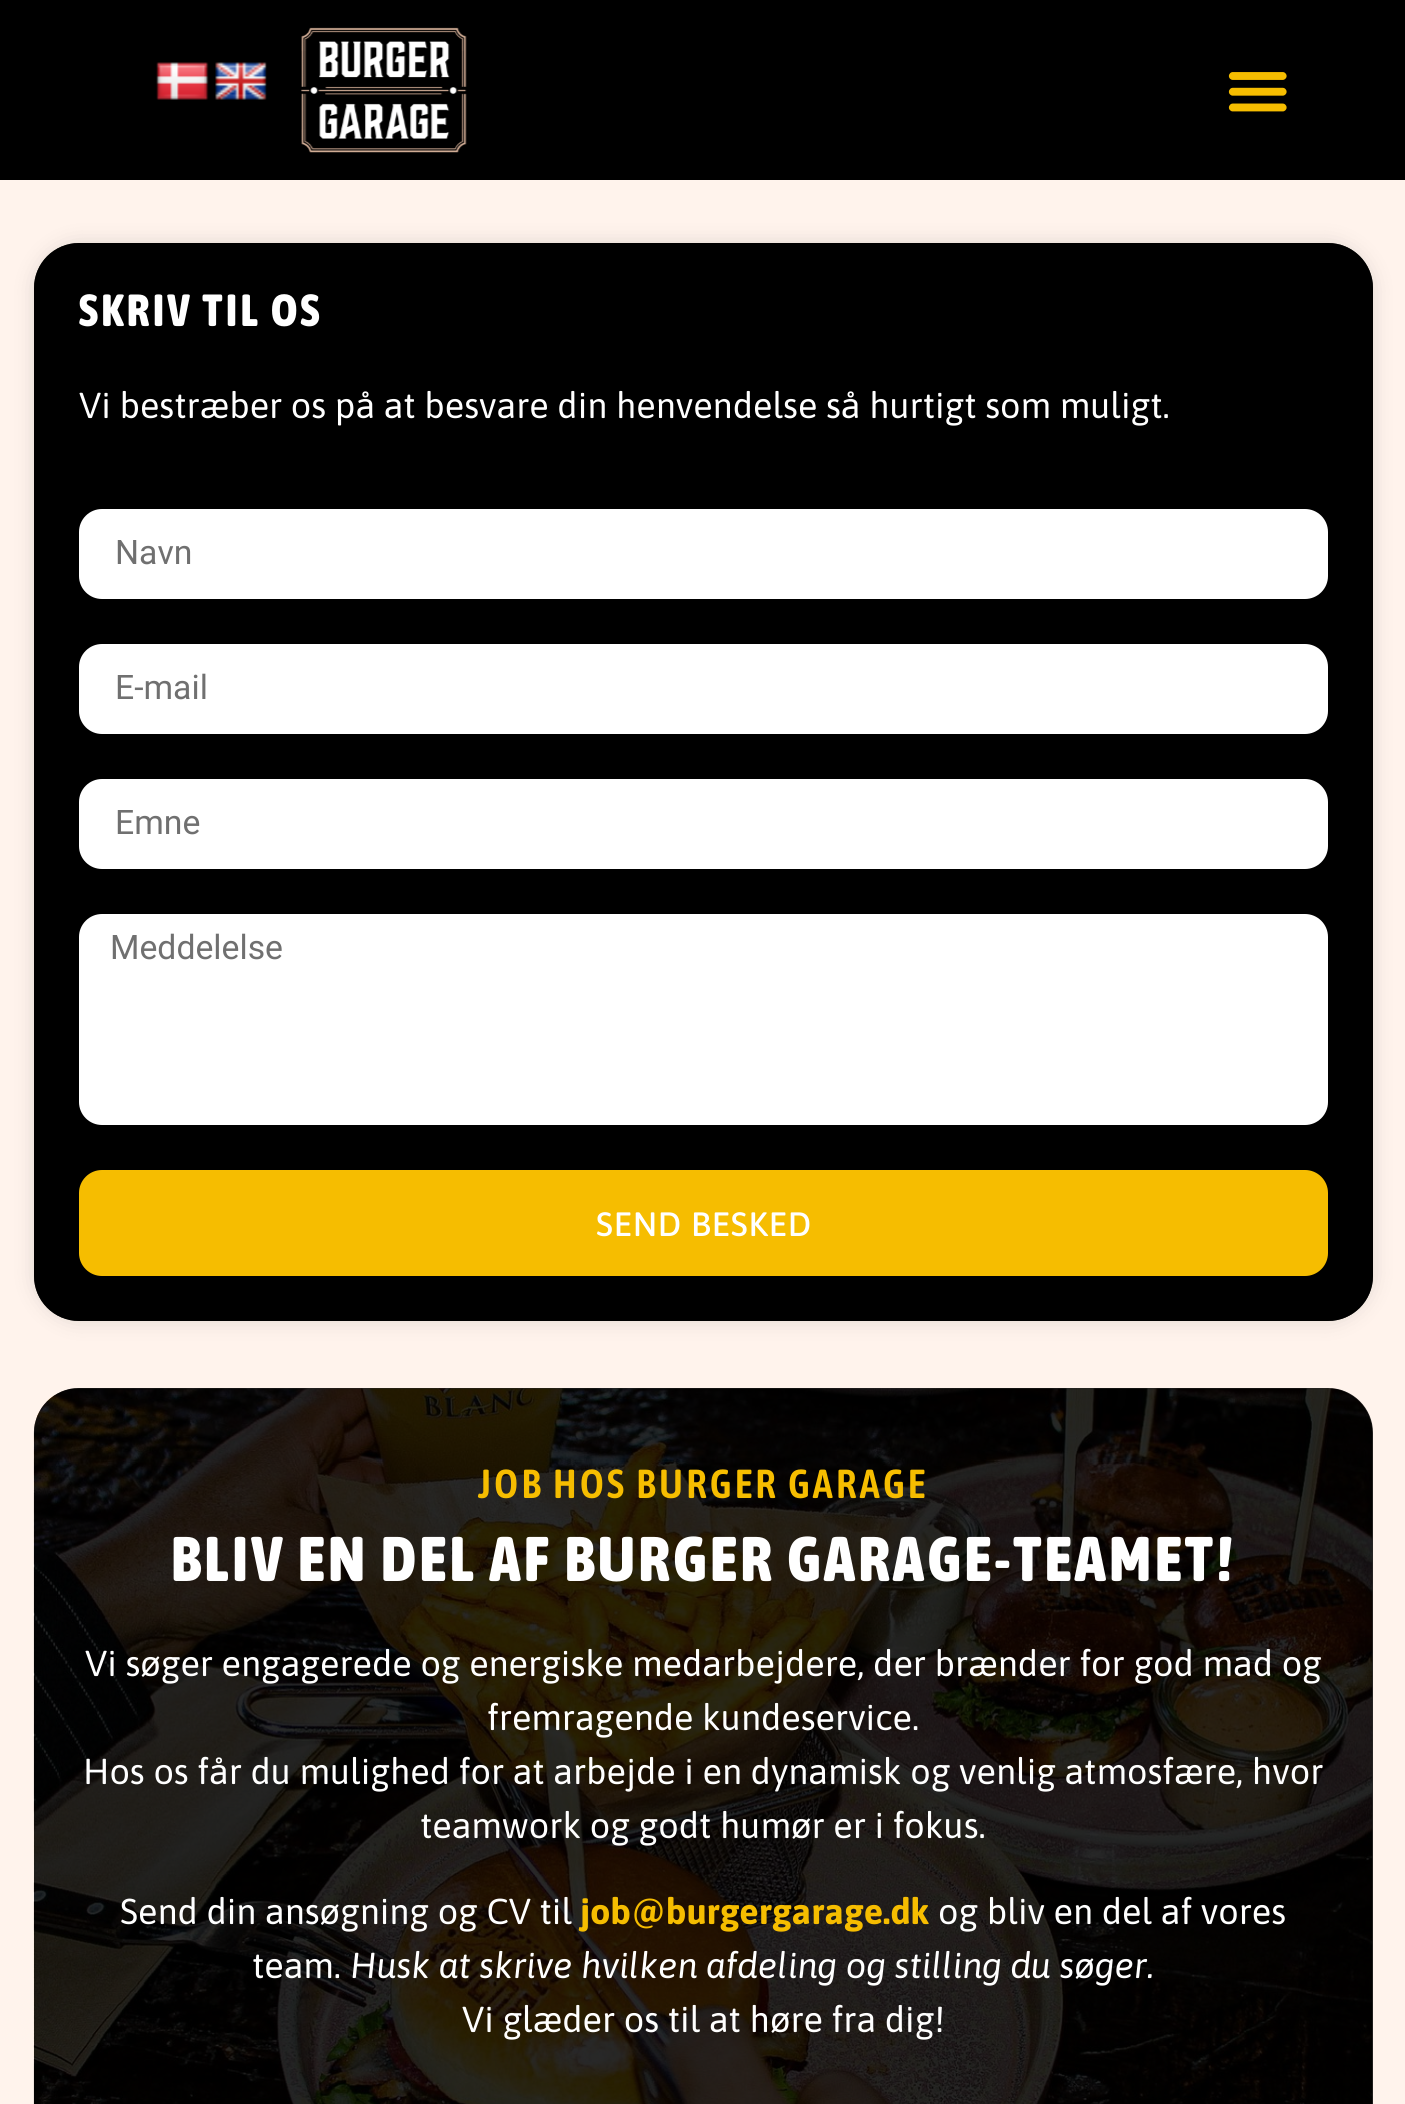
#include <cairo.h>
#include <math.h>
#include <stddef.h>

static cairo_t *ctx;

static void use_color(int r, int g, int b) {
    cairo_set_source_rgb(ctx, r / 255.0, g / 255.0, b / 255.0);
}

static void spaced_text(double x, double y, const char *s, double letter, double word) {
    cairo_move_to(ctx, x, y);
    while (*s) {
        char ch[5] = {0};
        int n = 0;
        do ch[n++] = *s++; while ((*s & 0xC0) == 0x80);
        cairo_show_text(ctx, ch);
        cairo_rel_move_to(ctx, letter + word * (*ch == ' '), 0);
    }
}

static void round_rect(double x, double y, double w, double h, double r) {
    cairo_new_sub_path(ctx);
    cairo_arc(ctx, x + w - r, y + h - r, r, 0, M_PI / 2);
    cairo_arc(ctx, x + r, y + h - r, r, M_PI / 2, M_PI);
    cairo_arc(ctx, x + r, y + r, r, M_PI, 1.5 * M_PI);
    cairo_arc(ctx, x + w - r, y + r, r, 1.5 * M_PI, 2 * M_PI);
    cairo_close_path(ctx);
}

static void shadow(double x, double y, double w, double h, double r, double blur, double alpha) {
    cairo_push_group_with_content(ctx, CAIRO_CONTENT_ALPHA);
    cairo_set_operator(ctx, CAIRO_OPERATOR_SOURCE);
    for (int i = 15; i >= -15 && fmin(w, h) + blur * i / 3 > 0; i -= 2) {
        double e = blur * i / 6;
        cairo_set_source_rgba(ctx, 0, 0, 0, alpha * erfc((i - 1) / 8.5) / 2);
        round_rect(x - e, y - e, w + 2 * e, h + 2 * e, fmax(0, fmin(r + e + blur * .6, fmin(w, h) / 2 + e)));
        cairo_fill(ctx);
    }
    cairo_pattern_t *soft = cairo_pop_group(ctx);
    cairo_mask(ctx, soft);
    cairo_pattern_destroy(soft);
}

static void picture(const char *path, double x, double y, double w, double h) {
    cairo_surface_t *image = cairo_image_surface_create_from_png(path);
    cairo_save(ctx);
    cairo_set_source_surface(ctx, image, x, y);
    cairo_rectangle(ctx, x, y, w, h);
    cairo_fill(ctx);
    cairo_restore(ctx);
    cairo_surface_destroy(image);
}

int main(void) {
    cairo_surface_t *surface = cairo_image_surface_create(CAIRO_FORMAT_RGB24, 1405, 2104);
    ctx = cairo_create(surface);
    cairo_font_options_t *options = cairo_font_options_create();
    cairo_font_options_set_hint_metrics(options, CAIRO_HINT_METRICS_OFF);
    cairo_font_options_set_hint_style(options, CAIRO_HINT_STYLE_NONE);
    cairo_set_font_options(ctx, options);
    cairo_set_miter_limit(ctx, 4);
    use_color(255, 243, 236);
    cairo_paint(ctx);
    use_color(0, 0, 0);
    cairo_rectangle(ctx, 0, 0, 1405, 180);
    cairo_fill(ctx);
    picture("img1.png", 156, 62, 53, 38);
    picture("img2.png", 215, 62, 52, 38);
    picture("img3.png", 301, 27, 166, 126);
    picture("img4.png", 1228, 72, 59, 40);
    use_color(0, 0, 0);
    shadow(34, 243, 1339, 1078, 45, 11, 0.12);
    use_color(0, 0, 0);
    round_rect(34, 243, 1339, 1078, 45);
    cairo_fill(ctx);
    cairo_set_source_rgba(ctx, 0, 0, 0, 0.7);
    round_rect(34, 243, 1339, 1078, 45);
    cairo_fill(ctx);
    cairo_select_font_face(ctx, "Asap Condensed ExtraBold", CAIRO_FONT_SLANT_NORMAL, CAIRO_FONT_WEIGHT_NORMAL);
    cairo_set_font_size(ctx, 45);
    use_color(255, 255, 255);
    spaced_text(79, 326, "SKRIV TIL OS", 3.4, 0);
    cairo_select_font_face(ctx, "Asap", CAIRO_FONT_SLANT_NORMAL, CAIRO_FONT_WEIGHT_NORMAL);
    cairo_set_font_size(ctx, 36);
    cairo_move_to(ctx, 79, 418);
    cairo_show_text(ctx, "Vi bestræber os på at besvare din henvendelse så hurtigt som muligt.");
    round_rect(79, 509, 1249, 90, 23);
    cairo_fill(ctx);
    cairo_select_font_face(ctx, "Roboto", CAIRO_FONT_SLANT_NORMAL, CAIRO_FONT_WEIGHT_NORMAL);
    cairo_set_font_size(ctx, 33.75);
    use_color(112, 112, 112);
    cairo_move_to(ctx, 115, 564);
    cairo_show_text(ctx, "Navn");
    use_color(255, 255, 255);
    round_rect(79, 644, 1249, 90, 23);
    cairo_fill(ctx);
    use_color(112, 112, 112);
    cairo_move_to(ctx, 115, 699);
    cairo_show_text(ctx, "E-mail");
    use_color(255, 255, 255);
    round_rect(79, 779, 1249, 90, 23);
    cairo_fill(ctx);
    use_color(112, 112, 112);
    cairo_move_to(ctx, 115, 834);
    cairo_show_text(ctx, "Emne");
    use_color(255, 255, 255);
    round_rect(79, 914, 1249, 211, 23);
    cairo_fill(ctx);
    use_color(112, 112, 112);
    cairo_move_to(ctx, 110, 959);
    cairo_show_text(ctx, "Meddelelse");
    use_color(246, 189, 0);
    round_rect(80, 1171, 1247, 104, 22);
    cairo_fill_preserve(ctx);
    cairo_stroke(ctx);
    cairo_select_font_face(ctx, "Asap Medium", CAIRO_FONT_SLANT_NORMAL, CAIRO_FONT_WEIGHT_NORMAL);
    use_color(255, 255, 255);
    spaced_text(596, 1236, "SEND BESKED", 0.75, 0);
    picture("img5.png", 33, 1388, 1340, 716);
    cairo_set_source_rgba(ctx, 0, 0, 0, 0.84);
    round_rect(34, 1388, 1339, 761, 45);
    cairo_fill(ctx);
    cairo_select_font_face(ctx, "Asap Condensed SemiBold", CAIRO_FONT_SLANT_NORMAL, CAIRO_FONT_WEIGHT_NORMAL);
    cairo_set_font_size(ctx, 40.5);
    use_color(246, 189, 0);
    spaced_text(478, 1498, "JOB HOS BURGER GARAGE", 3.4, 0);
    cairo_select_font_face(ctx, "Asap Condensed ExtraBold", CAIRO_FONT_SLANT_NORMAL, CAIRO_FONT_WEIGHT_NORMAL);
    cairo_set_font_size(ctx, 63);
    use_color(255, 255, 255);
    spaced_text(171, 1581, "BLIV EN DEL AF BURGER GARAGE-TEAMET!", 3.4, 0);
    cairo_select_font_face(ctx, "Asap", CAIRO_FONT_SLANT_NORMAL, CAIRO_FONT_WEIGHT_NORMAL);
    cairo_set_font_size(ctx, 36);
    cairo_move_to(ctx, 85, 1676);
    cairo_show_text(ctx, "Vi søger engagerede og energiske medarbejdere, der brænder for god mad og");
    cairo_move_to(ctx, 487, 1730);
    cairo_show_text(ctx, "fremragende kundeservice.");
    cairo_move_to(ctx, 83, 1784);
    cairo_show_text(ctx, "Hos os får du mulighed for at arbejde i en dynamisk og venlig atmosfære, hvor");
    cairo_move_to(ctx, 420, 1838);
    cairo_show_text(ctx, "teamwork og godt humør er i fokus.");
    cairo_move_to(ctx, 120, 1924);
    cairo_show_text(ctx, "Send din ansøgning og CV til");
    cairo_select_font_face(ctx, "Asap", CAIRO_FONT_SLANT_NORMAL, CAIRO_FONT_WEIGHT_BOLD);
    use_color(246, 189, 0);
    cairo_move_to(ctx, 580, 1924);
    cairo_show_text(ctx, "job@burgergarage.dk");
    cairo_select_font_face(ctx, "Asap", CAIRO_FONT_SLANT_NORMAL, CAIRO_FONT_WEIGHT_NORMAL);
    use_color(255, 255, 255);
    cairo_move_to(ctx, 938, 1924);
    cairo_show_text(ctx, "og bliv en del af vores");
    cairo_move_to(ctx, 252, 1978);
    cairo_show_text(ctx, "team.");
    cairo_select_font_face(ctx, "Asap", CAIRO_FONT_SLANT_ITALIC, CAIRO_FONT_WEIGHT_NORMAL);
    cairo_move_to(ctx, 350, 1978);
    cairo_show_text(ctx, "Husk at skrive hvilken afdeling og stilling du søger.");
    cairo_select_font_face(ctx, "Asap", CAIRO_FONT_SLANT_NORMAL, CAIRO_FONT_WEIGHT_NORMAL);
    cairo_move_to(ctx, 462, 2032);
    cairo_show_text(ctx, "Vi glæder os til at høre fra dig!");
    cairo_surface_write_to_png(surface, "result.png");
    cairo_font_options_destroy(options);
    cairo_destroy(ctx);
    cairo_surface_destroy(surface);
    return 0;
}
